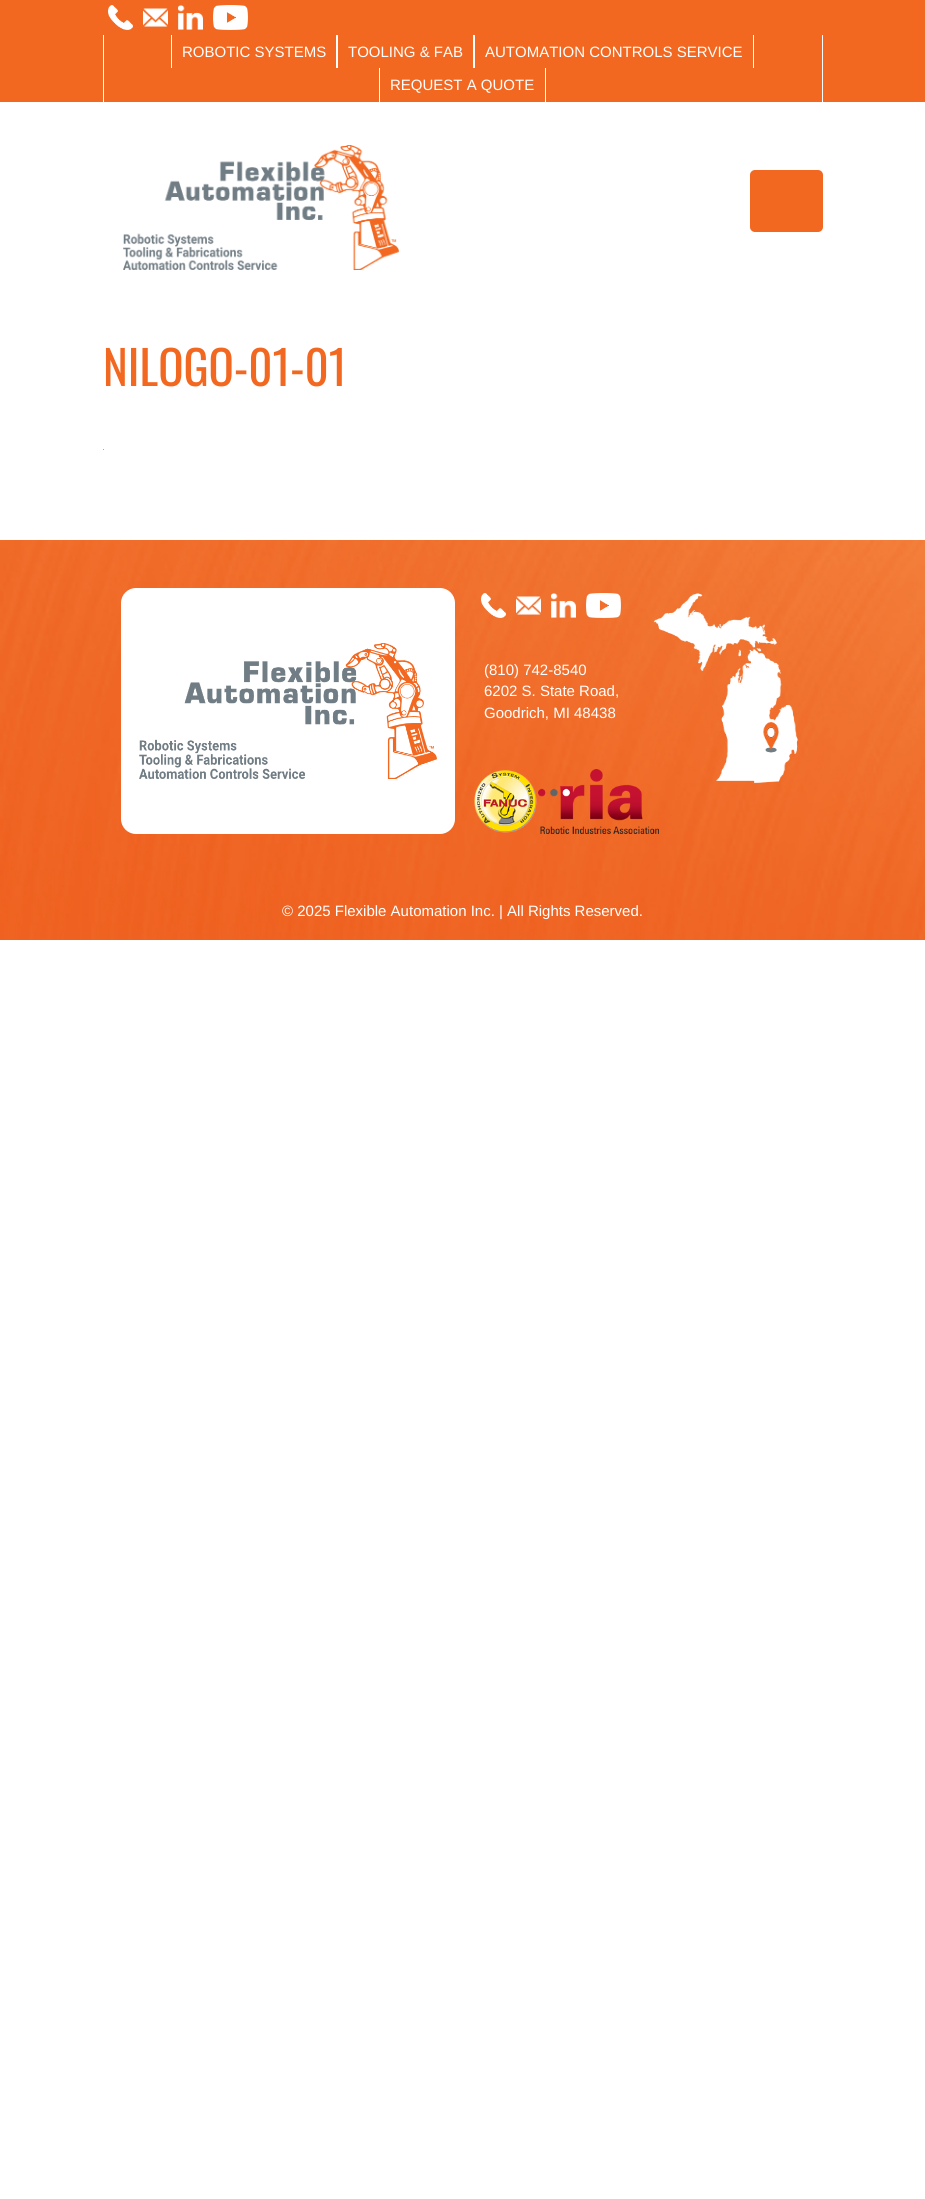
#include <cairo.h>
#include <math.h>
#include <stddef.h>

static cairo_t *ctx;

static void use_color(int r, int g, int b) {
    cairo_set_source_rgb(ctx, r / 255.0, g / 255.0, b / 255.0);
}

static void round_rect(double x, double y, double w, double h, double r) {
    cairo_new_sub_path(ctx);
    cairo_arc(ctx, x + w - r, y + h - r, r, 0, M_PI / 2);
    cairo_arc(ctx, x + r, y + h - r, r, M_PI / 2, M_PI);
    cairo_arc(ctx, x + r, y + r, r, M_PI, 1.5 * M_PI);
    cairo_arc(ctx, x + w - r, y + r, r, 1.5 * M_PI, 2 * M_PI);
    cairo_close_path(ctx);
}

static void picture(const char *path, double x, double y, double w, double h) {
    cairo_surface_t *image = cairo_image_surface_create_from_png(path);
    cairo_save(ctx);
    cairo_set_source_surface(ctx, image, x, y);
    cairo_rectangle(ctx, x, y, w, h);
    cairo_fill(ctx);
    cairo_restore(ctx);
    cairo_surface_destroy(image);
}

int main(void) {
    cairo_surface_t *surface = cairo_image_surface_create(CAIRO_FORMAT_RGB24, 925, 2199);
    ctx = cairo_create(surface);
    cairo_font_options_t *options = cairo_font_options_create();
    cairo_font_options_set_hint_metrics(options, CAIRO_HINT_METRICS_OFF);
    cairo_font_options_set_hint_style(options, CAIRO_HINT_STYLE_NONE);
    cairo_set_font_options(ctx, options);
    cairo_set_miter_limit(ctx, 4);
    use_color(255, 255, 255);
    cairo_paint(ctx);
    use_color(242, 104, 33);
    cairo_rectangle(ctx, 0, 0, 925, 102);
    cairo_fill(ctx);
    picture("img1.png", 108, 5, 25, 25);
    picture("img2.png", 143, 8, 25, 19);
    picture("img3.png", 178, 5, 25, 25);
    picture("img4.png", 213, 5, 35, 25);
    use_color(255, 255, 255);
    cairo_rectangle(ctx, 822, 35, 1, 67);
    cairo_fill(ctx);
    cairo_rectangle(ctx, 103, 35, 1, 67);
    cairo_fill(ctx);
    cairo_rectangle(ctx, 336, 35, 2, 33);
    cairo_fill(ctx);
    cairo_rectangle(ctx, 171, 35, 1, 33);
    cairo_fill(ctx);
    cairo_select_font_face(ctx, "Liberation Sans", CAIRO_FONT_SLANT_NORMAL, CAIRO_FONT_WEIGHT_NORMAL);
    cairo_set_font_size(ctx, 15);
    cairo_move_to(ctx, 182, 57);
    cairo_show_text(ctx, "ROBOTIC SYSTEMS");
    cairo_rectangle(ctx, 473, 35, 2, 33);
    cairo_fill(ctx);
    cairo_move_to(ctx, 348, 57);
    cairo_show_text(ctx, "TOOLING & FAB");
    cairo_rectangle(ctx, 753, 35, 1, 33);
    cairo_fill(ctx);
    cairo_move_to(ctx, 485, 57);
    cairo_show_text(ctx, "AUTOMATION CONTROLS SERVICE");
    cairo_rectangle(ctx, 545, 68, 1, 34);
    cairo_fill(ctx);
    cairo_rectangle(ctx, 379, 68, 1, 34);
    cairo_fill(ctx);
    cairo_move_to(ctx, 390, 90);
    cairo_show_text(ctx, "REQUEST A QUOTE");
    picture("img5.png", 123, 145, 276, 125);
    use_color(242, 104, 33);
    round_rect(750, 170, 73, 62, 5);
    cairo_fill(ctx);
    cairo_select_font_face(ctx, "Oswald", CAIRO_FONT_SLANT_NORMAL, CAIRO_FONT_WEIGHT_NORMAL);
    cairo_set_font_size(ctx, 47);
    cairo_move_to(ctx, 103, 386);
    cairo_show_text(ctx, "NILOGO-01-01");
    use_color(162, 169, 175);
    cairo_rectangle(ctx, 103, 449, 1, 1);
    cairo_fill(ctx);
    picture("img6.png", 0, 540, 925, 400);
    use_color(255, 255, 255);
    round_rect(121, 588, 334, 246, 15);
    cairo_fill(ctx);
    picture("img7.png", 139, 643, 298, 136);
    picture("img8.png", 481, 593, 25, 25);
    picture("img9.png", 516, 596, 25, 19);
    picture("img10.png", 551, 593, 25, 25);
    picture("img11.png", 586, 593, 35, 25);
    cairo_select_font_face(ctx, "Liberation Sans", CAIRO_FONT_SLANT_NORMAL, CAIRO_FONT_WEIGHT_NORMAL);
    cairo_set_font_size(ctx, 15);
    cairo_move_to(ctx, 484, 675);
    cairo_show_text(ctx, "(810) 742-8540");
    cairo_move_to(ctx, 484, 696);
    cairo_show_text(ctx, "6202 S. State Road,");
    cairo_move_to(ctx, 484, 718);
    cairo_show_text(ctx, "Goodrich, MI 48438");
    picture("img12.png", 474, 770, 63, 63);
    picture("img13.png", 538, 769, 121, 65);
    picture("img14.png", 653, 593, 145, 191);
    cairo_move_to(ctx, 282, 916);
    cairo_show_text(ctx, "© 2025 Flexible Automation Inc. | All Rights Reserved.");
    cairo_surface_write_to_png(surface, "result.png");
    cairo_font_options_destroy(options);
    cairo_destroy(ctx);
    cairo_surface_destroy(surface);
    return 0;
}
